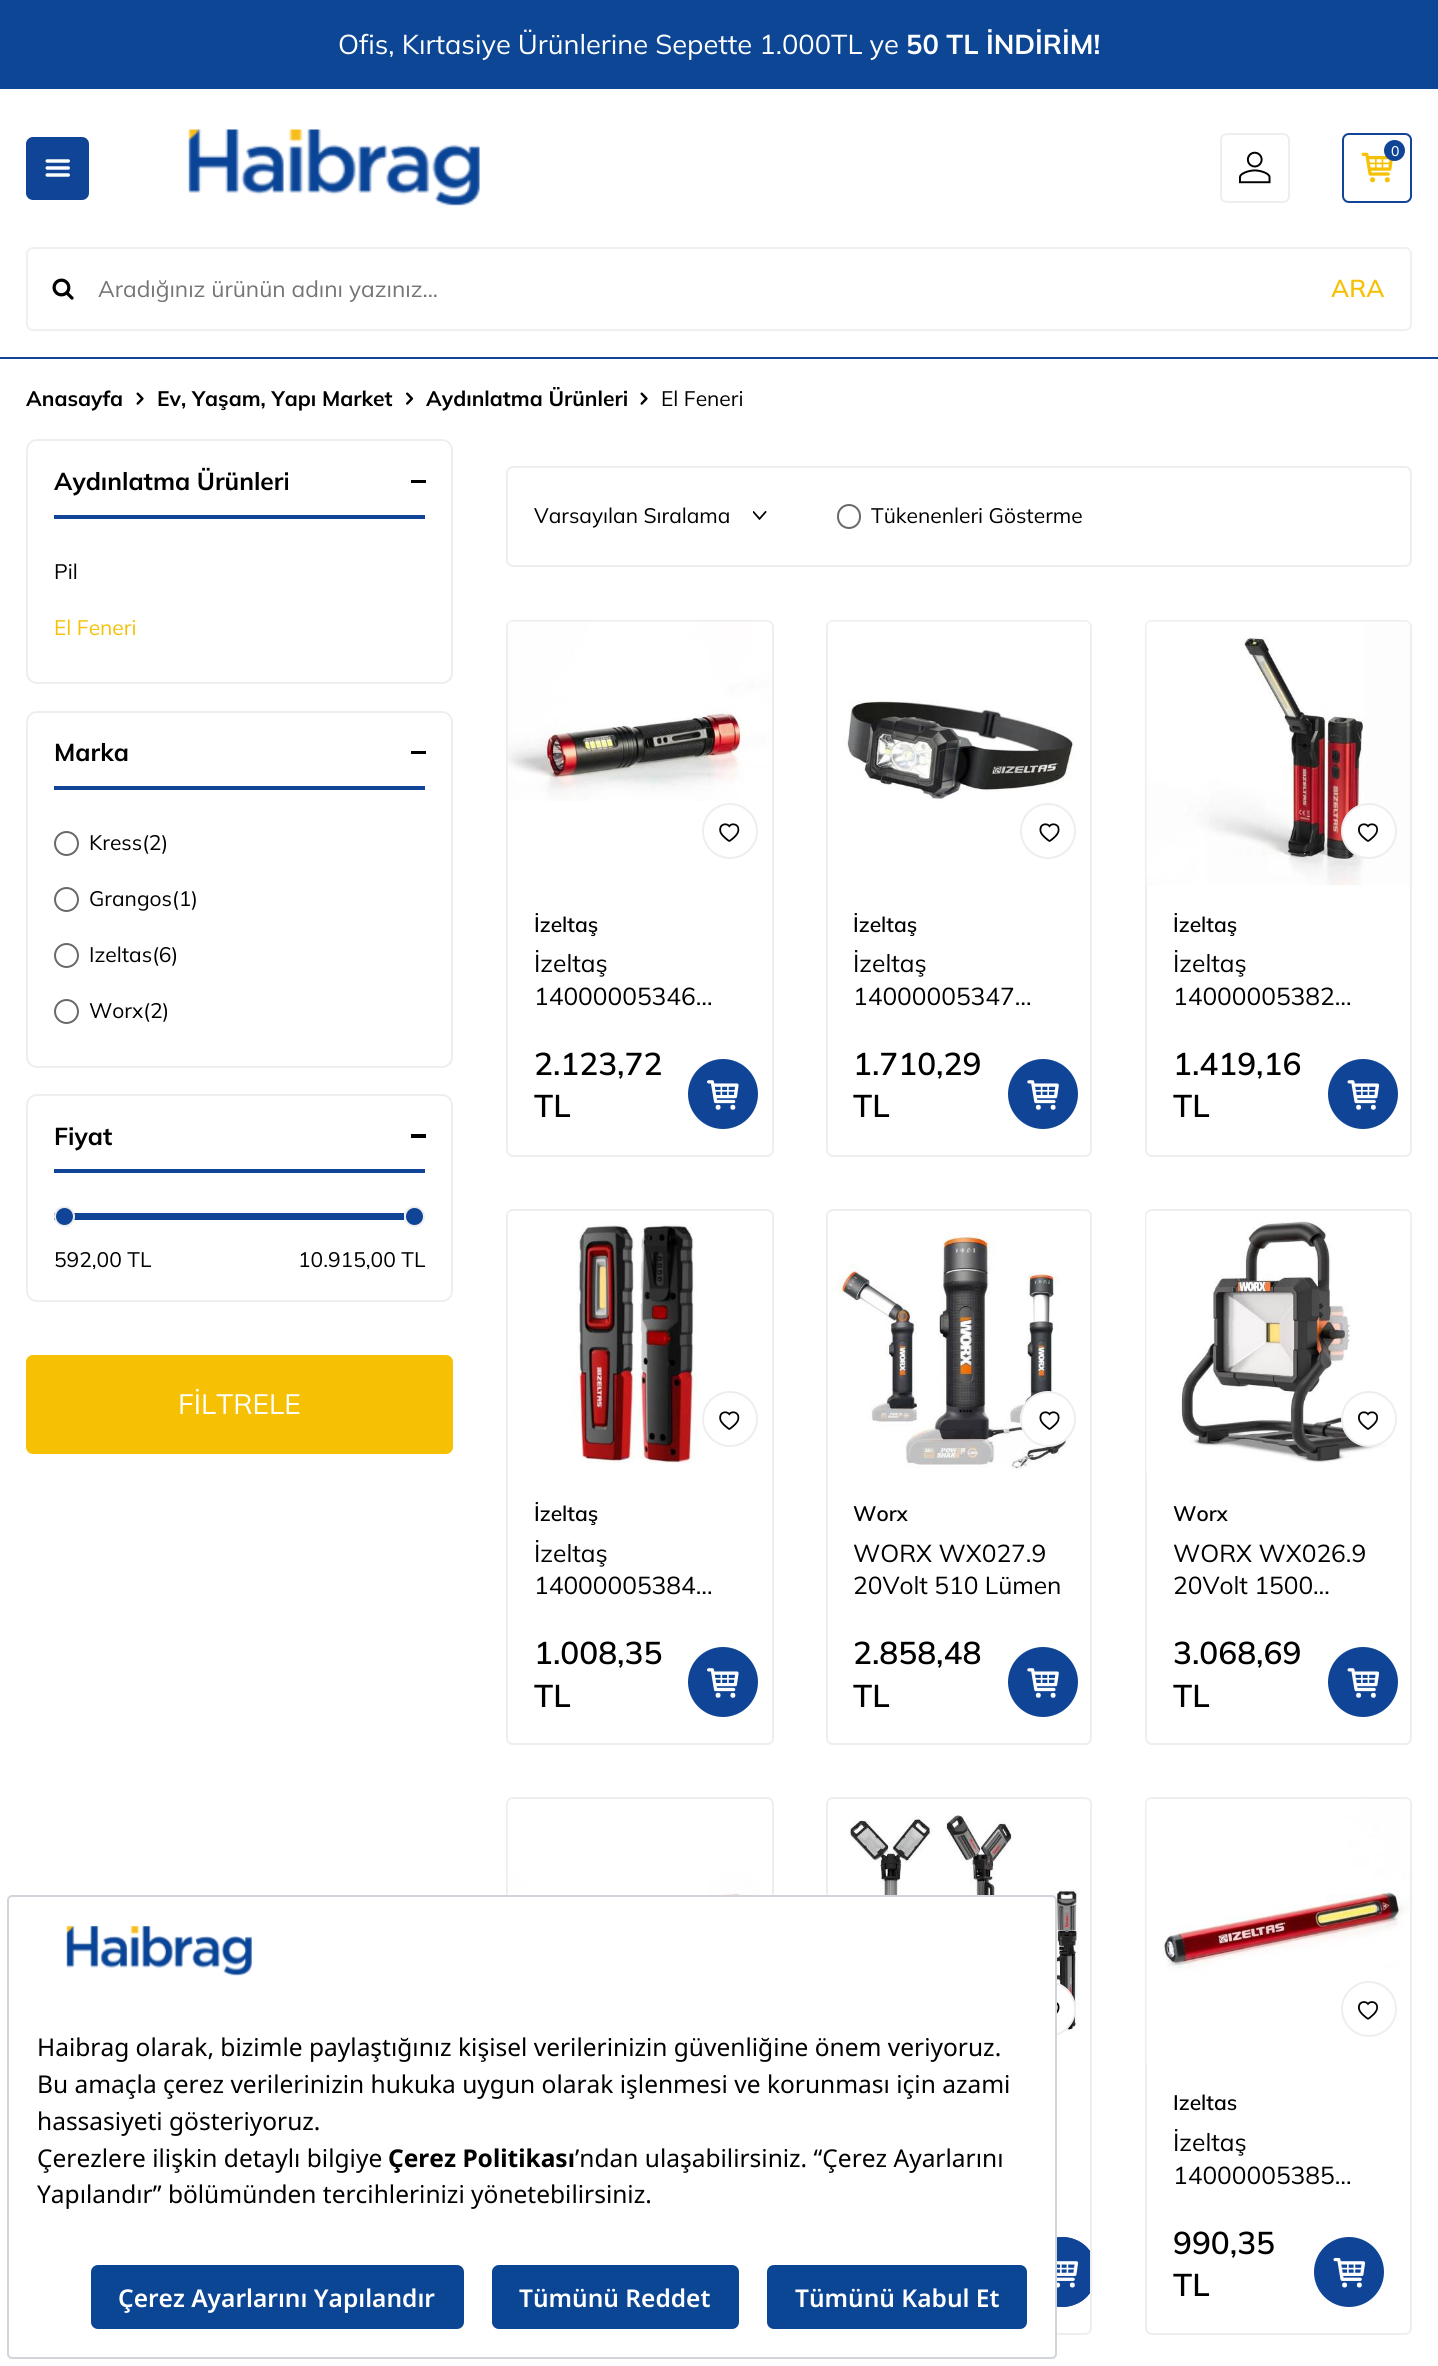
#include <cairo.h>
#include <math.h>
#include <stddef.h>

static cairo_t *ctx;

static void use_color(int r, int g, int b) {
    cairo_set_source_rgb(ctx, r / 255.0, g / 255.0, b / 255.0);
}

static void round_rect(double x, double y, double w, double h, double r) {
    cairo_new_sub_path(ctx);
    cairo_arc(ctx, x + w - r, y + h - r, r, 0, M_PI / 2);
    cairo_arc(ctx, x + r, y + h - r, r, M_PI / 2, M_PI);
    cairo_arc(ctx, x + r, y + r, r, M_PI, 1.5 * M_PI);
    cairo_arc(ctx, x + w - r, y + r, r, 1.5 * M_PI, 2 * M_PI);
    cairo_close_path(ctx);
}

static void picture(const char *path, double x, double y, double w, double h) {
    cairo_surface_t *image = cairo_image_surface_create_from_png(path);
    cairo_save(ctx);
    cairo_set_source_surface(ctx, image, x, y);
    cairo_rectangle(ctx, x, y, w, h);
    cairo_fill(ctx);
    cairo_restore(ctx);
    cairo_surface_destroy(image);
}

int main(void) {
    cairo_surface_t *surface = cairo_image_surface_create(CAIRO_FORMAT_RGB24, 1438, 2366);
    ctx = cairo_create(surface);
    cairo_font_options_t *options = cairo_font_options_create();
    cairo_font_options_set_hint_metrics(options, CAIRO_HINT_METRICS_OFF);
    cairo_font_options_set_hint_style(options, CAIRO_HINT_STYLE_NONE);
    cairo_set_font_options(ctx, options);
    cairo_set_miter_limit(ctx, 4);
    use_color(255, 255, 255);
    cairo_paint(ctx);
    use_color(12, 70, 148);
    cairo_rectangle(ctx, 0, 0, 1438, 89);
    cairo_fill(ctx);
    cairo_select_font_face(ctx, "Mulish", CAIRO_FONT_SLANT_NORMAL, CAIRO_FONT_WEIGHT_NORMAL);
    cairo_set_font_size(ctx, 27.3);
    use_color(255, 255, 255);
    cairo_move_to(ctx, 338, 54);
    cairo_show_text(ctx, "Ofis, Kırtasiye Ürünlerine Sepette 1.000TL ye");
    cairo_select_font_face(ctx, "Mulish", CAIRO_FONT_SLANT_NORMAL, CAIRO_FONT_WEIGHT_BOLD);
    cairo_move_to(ctx, 906, 54);
    cairo_show_text(ctx, "50 TL İNDİRİM!");
    use_color(16, 68, 150);
    cairo_rectangle(ctx, 0, 357, 1438, 2);
    cairo_fill(ctx);
    round_rect(26, 137, 63, 63, 7);
    cairo_fill(ctx);
    picture("img1.png", 45, 159, 25, 18);
    picture("img2.png", 188, 129, 292, 77);
    round_rect(1221, 134, 68, 68, 6);
    use_color(238, 238, 238);
    cairo_stroke(ctx);
    picture("img3.png", 1239, 151, 32, 33);
    round_rect(1343, 134, 68, 68, 6);
    use_color(16, 68, 150);
    cairo_stroke(ctx);
    picture("img4.png", 1361, 152, 32, 31);
    cairo_arc(ctx, 1394.5, 150.5, 10.5, 0, 2 * M_PI);
    cairo_fill(ctx);
    cairo_select_font_face(ctx, "Mulish Medium", CAIRO_FONT_SLANT_NORMAL, CAIRO_FONT_WEIGHT_NORMAL);
    cairo_set_font_size(ctx, 14);
    use_color(255, 255, 255);
    cairo_move_to(ctx, 1391, 156);
    cairo_show_text(ctx, "0");
    round_rect(27, 248, 1384, 82, 6);
    use_color(240, 240, 240);
    cairo_stroke(ctx);
    picture("img5.png", 52, 278, 22, 22);
    cairo_select_font_face(ctx, "Mulish", CAIRO_FONT_SLANT_NORMAL, CAIRO_FONT_WEIGHT_NORMAL);
    cairo_set_font_size(ctx, 22.75);
    use_color(117, 117, 117);
    cairo_move_to(ctx, 98, 297);
    cairo_show_text(ctx, "Aradığınız ürünün adını yazınız...");
    cairo_select_font_face(ctx, "Mulish SemiBold", CAIRO_FONT_SLANT_NORMAL, CAIRO_FONT_WEIGHT_NORMAL);
    cairo_set_font_size(ctx, 24.5);
    use_color(246, 193, 5);
    cairo_move_to(ctx, 1331, 297);
    cairo_show_text(ctx, "ARA");
    cairo_select_font_face(ctx, "Mulish", CAIRO_FONT_SLANT_NORMAL, CAIRO_FONT_WEIGHT_BOLD);
    cairo_set_font_size(ctx, 21);
    use_color(0, 0, 0);
    cairo_move_to(ctx, 26, 406);
    cairo_show_text(ctx, "Anasayfa");
    picture("img6.png", 136, 392, 8, 13);
    cairo_move_to(ctx, 157, 406);
    cairo_show_text(ctx, "Ev, Yaşam, Yapı Market");
    picture("img7.png", 406, 392, 8, 13);
    cairo_move_to(ctx, 426, 406);
    cairo_show_text(ctx, "Aydınlatma Ürünleri");
    picture("img6.png", 640, 392, 8, 13);
    cairo_select_font_face(ctx, "Mulish", CAIRO_FONT_SLANT_NORMAL, CAIRO_FONT_WEIGHT_NORMAL);
    cairo_move_to(ctx, 661, 406);
    cairo_show_text(ctx, "El Feneri");
    round_rect(27, 440, 425, 243, 10);
    use_color(238, 238, 238);
    cairo_stroke(ctx);
    use_color(16, 68, 150);
    cairo_rectangle(ctx, 54, 515, 371, 4);
    cairo_fill(ctx);
    cairo_select_font_face(ctx, "Mulish", CAIRO_FONT_SLANT_NORMAL, CAIRO_FONT_WEIGHT_BOLD);
    cairo_set_font_size(ctx, 24.5);
    use_color(0, 0, 0);
    cairo_move_to(ctx, 54, 490);
    cairo_show_text(ctx, "Aydınlatma Ürünleri");
    cairo_rectangle(ctx, 411, 480, 15, 3);
    cairo_fill(ctx);
    cairo_select_font_face(ctx, "Mulish", CAIRO_FONT_SLANT_NORMAL, CAIRO_FONT_WEIGHT_NORMAL);
    cairo_set_font_size(ctx, 21);
    cairo_move_to(ctx, 54, 579);
    cairo_show_text(ctx, "Pil");
    use_color(246, 193, 5);
    cairo_move_to(ctx, 54, 635);
    cairo_show_text(ctx, "El Feneri");
    round_rect(27, 712, 425, 355, 10);
    use_color(238, 238, 238);
    cairo_stroke(ctx);
    use_color(16, 68, 150);
    cairo_rectangle(ctx, 54, 786, 371, 4);
    cairo_fill(ctx);
    cairo_select_font_face(ctx, "Mulish", CAIRO_FONT_SLANT_NORMAL, CAIRO_FONT_WEIGHT_BOLD);
    cairo_set_font_size(ctx, 24.5);
    use_color(0, 0, 0);
    cairo_move_to(ctx, 54, 761);
    cairo_show_text(ctx, "Marka");
    cairo_rectangle(ctx, 411, 751, 15, 3);
    cairo_fill(ctx);
    cairo_arc(ctx, 66.5, 843.5, 11.5, 0, 2 * M_PI);
    use_color(105, 105, 105);
    cairo_stroke(ctx);
    cairo_select_font_face(ctx, "Mulish", CAIRO_FONT_SLANT_NORMAL, CAIRO_FONT_WEIGHT_NORMAL);
    cairo_set_font_size(ctx, 21);
    use_color(0, 0, 0);
    cairo_move_to(ctx, 89, 850);
    cairo_show_text(ctx, "Kress(2)");
    cairo_new_path(ctx);
    cairo_arc(ctx, 66.5, 899.5, 11.5, 0, 2 * M_PI);
    use_color(105, 105, 105);
    cairo_stroke(ctx);
    use_color(0, 0, 0);
    cairo_move_to(ctx, 89, 906);
    cairo_show_text(ctx, "Grangos(1)");
    cairo_new_path(ctx);
    cairo_arc(ctx, 66.5, 955.5, 11.5, 0, 2 * M_PI);
    use_color(105, 105, 105);
    cairo_stroke(ctx);
    use_color(0, 0, 0);
    cairo_move_to(ctx, 89, 962);
    cairo_show_text(ctx, "Izeltas(6)");
    cairo_new_path(ctx);
    cairo_arc(ctx, 66.5, 1011.5, 11.5, 0, 2 * M_PI);
    use_color(105, 105, 105);
    cairo_stroke(ctx);
    use_color(0, 0, 0);
    cairo_move_to(ctx, 89, 1018);
    cairo_show_text(ctx, "Worx(2)");
    round_rect(27, 1095, 425, 206, 10);
    use_color(238, 238, 238);
    cairo_stroke(ctx);
    use_color(16, 68, 150);
    cairo_rectangle(ctx, 54, 1169, 371, 4);
    cairo_fill(ctx);
    cairo_select_font_face(ctx, "Mulish", CAIRO_FONT_SLANT_NORMAL, CAIRO_FONT_WEIGHT_BOLD);
    cairo_set_font_size(ctx, 24.5);
    use_color(0, 0, 0);
    cairo_move_to(ctx, 54, 1145);
    cairo_show_text(ctx, "Fiyat");
    cairo_rectangle(ctx, 411, 1134, 15, 4);
    cairo_fill(ctx);
    use_color(16, 68, 150);
    cairo_rectangle(ctx, 54, 1213, 350, 7);
    cairo_fill(ctx);
    cairo_arc(ctx, 64.5, 1216.5, 9.5, 0, 2 * M_PI);
    cairo_fill_preserve(ctx);
    use_color(238, 238, 238);
    cairo_stroke(ctx);
    use_color(16, 68, 150);
    cairo_arc(ctx, 414.5, 1216.5, 9.5, 0, 2 * M_PI);
    cairo_fill_preserve(ctx);
    use_color(238, 238, 238);
    cairo_stroke(ctx);
    cairo_select_font_face(ctx, "Mulish", CAIRO_FONT_SLANT_NORMAL, CAIRO_FONT_WEIGHT_NORMAL);
    cairo_set_font_size(ctx, 21);
    use_color(0, 0, 0);
    cairo_move_to(ctx, 54, 1267);
    cairo_show_text(ctx, "592,00 TL");
    cairo_move_to(ctx, 298, 1267);
    cairo_show_text(ctx, "10.915,00 TL");
    use_color(246, 193, 5);
    round_rect(27, 1356, 425, 97, 6);
    cairo_fill_preserve(ctx);
    cairo_stroke(ctx);
    cairo_set_font_size(ctx, 28);
    use_color(255, 255, 255);
    cairo_move_to(ctx, 178, 1414);
    cairo_show_text(ctx, "FİLTRELE");
    round_rect(507, 467, 904, 99, 6);
    use_color(238, 238, 238);
    cairo_stroke(ctx);
    picture("img8.png", 753, 511, 14, 10);
    cairo_set_font_size(ctx, 21);
    use_color(0, 0, 0);
    cairo_move_to(ctx, 534, 523);
    cairo_show_text(ctx, "Varsayılan Sıralama");
    round_rect(838, 505, 22, 23, 11);
    use_color(105, 105, 105);
    cairo_stroke(ctx);
    use_color(0, 0, 0);
    cairo_move_to(ctx, 871, 523);
    cairo_show_text(ctx, "Tükenenleri Gösterme");
    round_rect(507, 621, 266, 535, 6);
    use_color(238, 238, 238);
    cairo_stroke(ctx);
    picture("img9.png", 508, 621, 263, 180);
    cairo_arc(ctx, 730, 831, 27, 0, 2 * M_PI);
    cairo_stroke(ctx);
    picture("img10.png", 719, 823, 21, 19);
    cairo_select_font_face(ctx, "Mulish SemiBold", CAIRO_FONT_SLANT_NORMAL, CAIRO_FONT_WEIGHT_NORMAL);
    use_color(0, 0, 0);
    cairo_move_to(ctx, 534, 932);
    cairo_show_text(ctx, "İzeltaş");
    cairo_select_font_face(ctx, "Mulish", CAIRO_FONT_SLANT_NORMAL, CAIRO_FONT_WEIGHT_NORMAL);
    cairo_set_font_size(ctx, 24.5);
    cairo_move_to(ctx, 534, 972);
    cairo_show_text(ctx, "İzeltaş");
    cairo_move_to(ctx, 534, 1005);
    cairo_show_text(ctx, "14000005346…");
    cairo_select_font_face(ctx, "Mulish SemiBold", CAIRO_FONT_SLANT_NORMAL, CAIRO_FONT_WEIGHT_NORMAL);
    cairo_set_font_size(ctx, 31.5);
    cairo_move_to(ctx, 534, 1075);
    cairo_show_text(ctx, "2.123,72");
    cairo_move_to(ctx, 534, 1117);
    cairo_show_text(ctx, "TL");
    use_color(16, 68, 150);
    cairo_new_path(ctx);
    cairo_arc(ctx, 723, 1094, 34, 0, 2 * M_PI);
    cairo_fill_preserve(ctx);
    cairo_stroke(ctx);
    picture("img11.png", 707, 1080, 32, 30);
    round_rect(827, 621, 264, 535, 6);
    use_color(238, 238, 238);
    cairo_stroke(ctx);
    picture("img12.png", 828, 621, 262, 180);
    cairo_arc(ctx, 1048, 831, 27, 0, 2 * M_PI);
    cairo_stroke(ctx);
    picture("img13.png", 1039, 823, 21, 19);
    cairo_set_font_size(ctx, 21);
    use_color(0, 0, 0);
    cairo_move_to(ctx, 853, 932);
    cairo_show_text(ctx, "İzeltaş");
    cairo_select_font_face(ctx, "Mulish", CAIRO_FONT_SLANT_NORMAL, CAIRO_FONT_WEIGHT_NORMAL);
    cairo_set_font_size(ctx, 24.5);
    cairo_move_to(ctx, 853, 972);
    cairo_show_text(ctx, "İzeltaş");
    cairo_move_to(ctx, 853, 1005);
    cairo_show_text(ctx, "14000005347…");
    cairo_select_font_face(ctx, "Mulish SemiBold", CAIRO_FONT_SLANT_NORMAL, CAIRO_FONT_WEIGHT_NORMAL);
    cairo_set_font_size(ctx, 31.5);
    cairo_move_to(ctx, 853, 1075);
    cairo_show_text(ctx, "1.710,29");
    cairo_move_to(ctx, 853, 1117);
    cairo_show_text(ctx, "TL");
    use_color(16, 68, 150);
    cairo_new_path(ctx);
    cairo_arc(ctx, 1043, 1094, 34, 0, 2 * M_PI);
    cairo_fill_preserve(ctx);
    cairo_stroke(ctx);
    picture("img14.png", 1027, 1080, 32, 30);
    round_rect(1146, 621, 265, 535, 6);
    use_color(238, 238, 238);
    cairo_stroke(ctx);
    picture("img15.png", 1146, 621, 264, 265);
    use_color(255, 255, 255);
    cairo_arc(ctx, 1369, 831, 27, 0, 2 * M_PI);
    cairo_fill_preserve(ctx);
    use_color(238, 238, 238);
    cairo_stroke(ctx);
    picture("img16.png", 1358, 823, 20, 19);
    cairo_set_font_size(ctx, 21);
    use_color(0, 0, 0);
    cairo_move_to(ctx, 1173, 932);
    cairo_show_text(ctx, "İzeltaş");
    cairo_select_font_face(ctx, "Mulish", CAIRO_FONT_SLANT_NORMAL, CAIRO_FONT_WEIGHT_NORMAL);
    cairo_set_font_size(ctx, 24.5);
    cairo_move_to(ctx, 1173, 972);
    cairo_show_text(ctx, "İzeltaş");
    cairo_move_to(ctx, 1173, 1005);
    cairo_show_text(ctx, "14000005382…");
    cairo_select_font_face(ctx, "Mulish SemiBold", CAIRO_FONT_SLANT_NORMAL, CAIRO_FONT_WEIGHT_NORMAL);
    cairo_set_font_size(ctx, 31.5);
    cairo_move_to(ctx, 1173, 1075);
    cairo_show_text(ctx, "1.419,16");
    cairo_move_to(ctx, 1173, 1117);
    cairo_show_text(ctx, "TL");
    use_color(16, 68, 150);
    cairo_new_path(ctx);
    cairo_arc(ctx, 1363, 1094, 34, 0, 2 * M_PI);
    cairo_fill_preserve(ctx);
    cairo_stroke(ctx);
    picture("img17.png", 1347, 1080, 33, 30);
    round_rect(507, 1210, 266, 534, 6);
    use_color(238, 238, 238);
    cairo_stroke(ctx);
    picture("img18.png", 508, 1211, 190, 252);
    cairo_arc(ctx, 730, 1419, 27, 0, 2 * M_PI);
    cairo_stroke(ctx);
    picture("img10.png", 719, 1411, 21, 19);
    cairo_set_font_size(ctx, 21);
    use_color(0, 0, 0);
    cairo_move_to(ctx, 534, 1521);
    cairo_show_text(ctx, "İzeltaş");
    cairo_select_font_face(ctx, "Mulish", CAIRO_FONT_SLANT_NORMAL, CAIRO_FONT_WEIGHT_NORMAL);
    cairo_set_font_size(ctx, 24.5);
    cairo_move_to(ctx, 534, 1562);
    cairo_show_text(ctx, "İzeltaş");
    cairo_move_to(ctx, 534, 1594);
    cairo_show_text(ctx, "14000005384…");
    cairo_select_font_face(ctx, "Mulish SemiBold", CAIRO_FONT_SLANT_NORMAL, CAIRO_FONT_WEIGHT_NORMAL);
    cairo_set_font_size(ctx, 31.5);
    cairo_move_to(ctx, 534, 1664);
    cairo_show_text(ctx, "1.008,35");
    cairo_move_to(ctx, 534, 1707);
    cairo_show_text(ctx, "TL");
    use_color(16, 68, 150);
    cairo_new_path(ctx);
    cairo_arc(ctx, 723, 1682, 34, 0, 2 * M_PI);
    cairo_fill_preserve(ctx);
    cairo_stroke(ctx);
    picture("img11.png", 707, 1668, 32, 30);
    round_rect(827, 1210, 264, 534, 6);
    use_color(238, 238, 238);
    cairo_stroke(ctx);
    picture("img19.png", 828, 1212, 262, 257);
    use_color(255, 255, 255);
    cairo_arc(ctx, 1048, 1419, 27, 0, 2 * M_PI);
    cairo_fill_preserve(ctx);
    use_color(238, 238, 238);
    cairo_stroke(ctx);
    picture("img13.png", 1039, 1411, 21, 19);
    cairo_set_font_size(ctx, 21);
    use_color(0, 0, 0);
    cairo_move_to(ctx, 853, 1521);
    cairo_show_text(ctx, "Worx");
    cairo_select_font_face(ctx, "Mulish", CAIRO_FONT_SLANT_NORMAL, CAIRO_FONT_WEIGHT_NORMAL);
    cairo_set_font_size(ctx, 24.5);
    cairo_move_to(ctx, 853, 1562);
    cairo_show_text(ctx, "WORX WX027.9");
    cairo_move_to(ctx, 853, 1594);
    cairo_show_text(ctx, "20Volt 510 Lümen");
    cairo_select_font_face(ctx, "Mulish SemiBold", CAIRO_FONT_SLANT_NORMAL, CAIRO_FONT_WEIGHT_NORMAL);
    cairo_set_font_size(ctx, 31.5);
    cairo_move_to(ctx, 853, 1664);
    cairo_show_text(ctx, "2.858,48");
    cairo_move_to(ctx, 853, 1707);
    cairo_show_text(ctx, "TL");
    use_color(16, 68, 150);
    cairo_new_path(ctx);
    cairo_arc(ctx, 1043, 1682, 34, 0, 2 * M_PI);
    cairo_fill_preserve(ctx);
    cairo_stroke(ctx);
    picture("img14.png", 1027, 1668, 32, 30);
    round_rect(1146, 1210, 265, 534, 6);
    use_color(238, 238, 238);
    cairo_stroke(ctx);
    picture("img20.png", 1146, 1211, 265, 263);
    use_color(255, 255, 255);
    cairo_arc(ctx, 1369, 1419, 27, 0, 2 * M_PI);
    cairo_fill_preserve(ctx);
    use_color(238, 238, 238);
    cairo_stroke(ctx);
    picture("img16.png", 1358, 1411, 20, 19);
    cairo_set_font_size(ctx, 21);
    use_color(0, 0, 0);
    cairo_move_to(ctx, 1173, 1521);
    cairo_show_text(ctx, "Worx");
    cairo_select_font_face(ctx, "Mulish", CAIRO_FONT_SLANT_NORMAL, CAIRO_FONT_WEIGHT_NORMAL);
    cairo_set_font_size(ctx, 24.5);
    cairo_move_to(ctx, 1173, 1562);
    cairo_show_text(ctx, "WORX WX026.9");
    cairo_move_to(ctx, 1173, 1594);
    cairo_show_text(ctx, "20Volt 1500…");
    cairo_select_font_face(ctx, "Mulish SemiBold", CAIRO_FONT_SLANT_NORMAL, CAIRO_FONT_WEIGHT_NORMAL);
    cairo_set_font_size(ctx, 31.5);
    cairo_move_to(ctx, 1173, 1664);
    cairo_show_text(ctx, "3.068,69");
    cairo_move_to(ctx, 1173, 1707);
    cairo_show_text(ctx, "TL");
    use_color(16, 68, 150);
    cairo_new_path(ctx);
    cairo_arc(ctx, 1363, 1682, 34, 0, 2 * M_PI);
    cairo_fill_preserve(ctx);
    cairo_stroke(ctx);
    picture("img17.png", 1347, 1668, 33, 30);
    round_rect(507, 1798, 266, 536, 6);
    use_color(238, 238, 238);
    cairo_stroke(ctx);
    picture("img21.png", 507, 1799, 253, 96);
    round_rect(827, 1798, 264, 536, 6);
    cairo_stroke(ctx);
    picture("img22.png", 828, 1800, 262, 247);
    use_color(255, 255, 255);
    cairo_arc(ctx, 1048, 2009, 27, 0, 2 * M_PI);
    cairo_fill_preserve(ctx);
    use_color(238, 238, 238);
    cairo_stroke(ctx);
    picture("img23.png", 1057, 2002, 3, 12);
    cairo_save(ctx);
    round_rect(828, 1799, 262, 534, 5);
    cairo_clip(ctx);
    use_color(16, 68, 150);
    cairo_arc(ctx, 1062, 2272, 35, 0, 2 * M_PI);
    cairo_fill(ctx);
    cairo_restore(ctx);
    use_color(16, 68, 150);
    cairo_new_path(ctx);
    cairo_move_to(ctx, 1062, 2237);
    cairo_curve_to(ctx, 1043, 2237, 1027, 2253, 1027, 2272);
    cairo_curve_to(ctx, 1027, 2291, 1043, 2307, 1062, 2307);
    cairo_curve_to(ctx, 1073, 2307, 1084, 2302, 1090, 2293);
    cairo_line_to(ctx, 1090, 2289);
    cairo_curve_to(ctx, 1084, 2299, 1074, 2305, 1062, 2305);
    cairo_curve_to(ctx, 1044, 2305, 1029, 2290, 1029, 2272);
    cairo_curve_to(ctx, 1029, 2254, 1044, 2239, 1062, 2239);
    cairo_curve_to(ctx, 1074, 2239, 1084, 2245, 1090, 2255);
    cairo_line_to(ctx, 1090, 2251);
    cairo_curve_to(ctx, 1084, 2242, 1073, 2237, 1062, 2237);
    cairo_close_path(ctx);
    cairo_fill(ctx);
    picture("img24.png", 1057, 2261, 22, 27);
    round_rect(1146, 1798, 265, 536, 6);
    use_color(238, 238, 238);
    cairo_stroke(ctx);
    picture("img25.png", 1146, 1799, 264, 264);
    cairo_arc(ctx, 1369, 2009, 27, 0, 2 * M_PI);
    cairo_stroke(ctx);
    picture("img26.png", 1358, 2001, 20, 19);
    cairo_set_font_size(ctx, 21);
    use_color(0, 0, 0);
    cairo_move_to(ctx, 1173, 2110);
    cairo_show_text(ctx, "Izeltas");
    cairo_select_font_face(ctx, "Mulish", CAIRO_FONT_SLANT_NORMAL, CAIRO_FONT_WEIGHT_NORMAL);
    cairo_set_font_size(ctx, 24.5);
    cairo_move_to(ctx, 1173, 2151);
    cairo_show_text(ctx, "İzeltaş");
    cairo_move_to(ctx, 1173, 2184);
    cairo_show_text(ctx, "14000005385…");
    cairo_select_font_face(ctx, "Mulish SemiBold", CAIRO_FONT_SLANT_NORMAL, CAIRO_FONT_WEIGHT_NORMAL);
    cairo_set_font_size(ctx, 31.5);
    cairo_move_to(ctx, 1173, 2254);
    cairo_show_text(ctx, "990,35");
    cairo_move_to(ctx, 1173, 2296);
    cairo_show_text(ctx, "TL");
    use_color(16, 68, 150);
    cairo_new_path(ctx);
    cairo_arc(ctx, 1349, 2272, 34, 0, 2 * M_PI);
    cairo_fill_preserve(ctx);
    cairo_stroke(ctx);
    picture("img27.png", 1333, 2257, 33, 31);
    use_color(255, 255, 255);
    round_rect(8, 1896, 1048, 462, 4);
    cairo_fill_preserve(ctx);
    use_color(209, 213, 219);
    cairo_stroke(ctx);
    picture("img28.png", 66, 1926, 186, 50);
    cairo_select_font_face(ctx, "Noto Sans", CAIRO_FONT_SLANT_NORMAL, CAIRO_FONT_WEIGHT_NORMAL);
    cairo_set_font_size(ctx, 24.5);
    use_color(0, 0, 0);
    cairo_move_to(ctx, 37, 2056);
    cairo_show_text(ctx, "Haibrag olarak, bizimle paylaştığınız kişisel verilerinizin güvenliğine önem veriyoruz.");
    cairo_move_to(ctx, 37, 2093);
    cairo_show_text(ctx, "Bu amaçla çerez verilerinizin hukuka uygun olarak işlenmesi ve korunması için azami");
    cairo_move_to(ctx, 37, 2130);
    cairo_show_text(ctx, "hassasiyeti gösteriyoruz.");
    cairo_move_to(ctx, 37, 2167);
    cairo_show_text(ctx, "Çerezlere ilişkin detaylı bilgiye");
    cairo_select_font_face(ctx, "Noto Sans", CAIRO_FONT_SLANT_NORMAL, CAIRO_FONT_WEIGHT_BOLD);
    cairo_move_to(ctx, 388, 2167);
    cairo_show_text(ctx, "Çerez Politikası");
    cairo_select_font_face(ctx, "Noto Sans", CAIRO_FONT_SLANT_NORMAL, CAIRO_FONT_WEIGHT_NORMAL);
    cairo_move_to(ctx, 575, 2167);
    cairo_show_text(ctx, "’ndan ulaşabilirsiniz. “Çerez Ayarlarını");
    cairo_move_to(ctx, 37, 2203);
    cairo_show_text(ctx, "Yapılandır” bölümünden tercihlerinizi yönetebilirsiniz.");
    use_color(11, 70, 148);
    round_rect(91, 2265, 373, 64, 7);
    cairo_fill(ctx);
    cairo_select_font_face(ctx, "Noto Sans SemiBold", CAIRO_FONT_SLANT_NORMAL, CAIRO_FONT_WEIGHT_NORMAL);
    use_color(255, 255, 255);
    cairo_move_to(ctx, 118, 2307);
    cairo_show_text(ctx, "Çerez Ayarlarını Yapılandır");
    use_color(11, 70, 148);
    round_rect(492, 2265, 247, 64, 7);
    cairo_fill(ctx);
    use_color(255, 255, 255);
    cairo_move_to(ctx, 519, 2307);
    cairo_show_text(ctx, "Tümünü Reddet");
    use_color(11, 70, 148);
    round_rect(767, 2265, 260, 64, 7);
    cairo_fill(ctx);
    use_color(255, 255, 255);
    cairo_move_to(ctx, 795, 2307);
    cairo_show_text(ctx, "Tümünü Kabul Et");
    cairo_surface_write_to_png(surface, "result.png");
    cairo_font_options_destroy(options);
    cairo_destroy(ctx);
    cairo_surface_destroy(surface);
    return 0;
}
